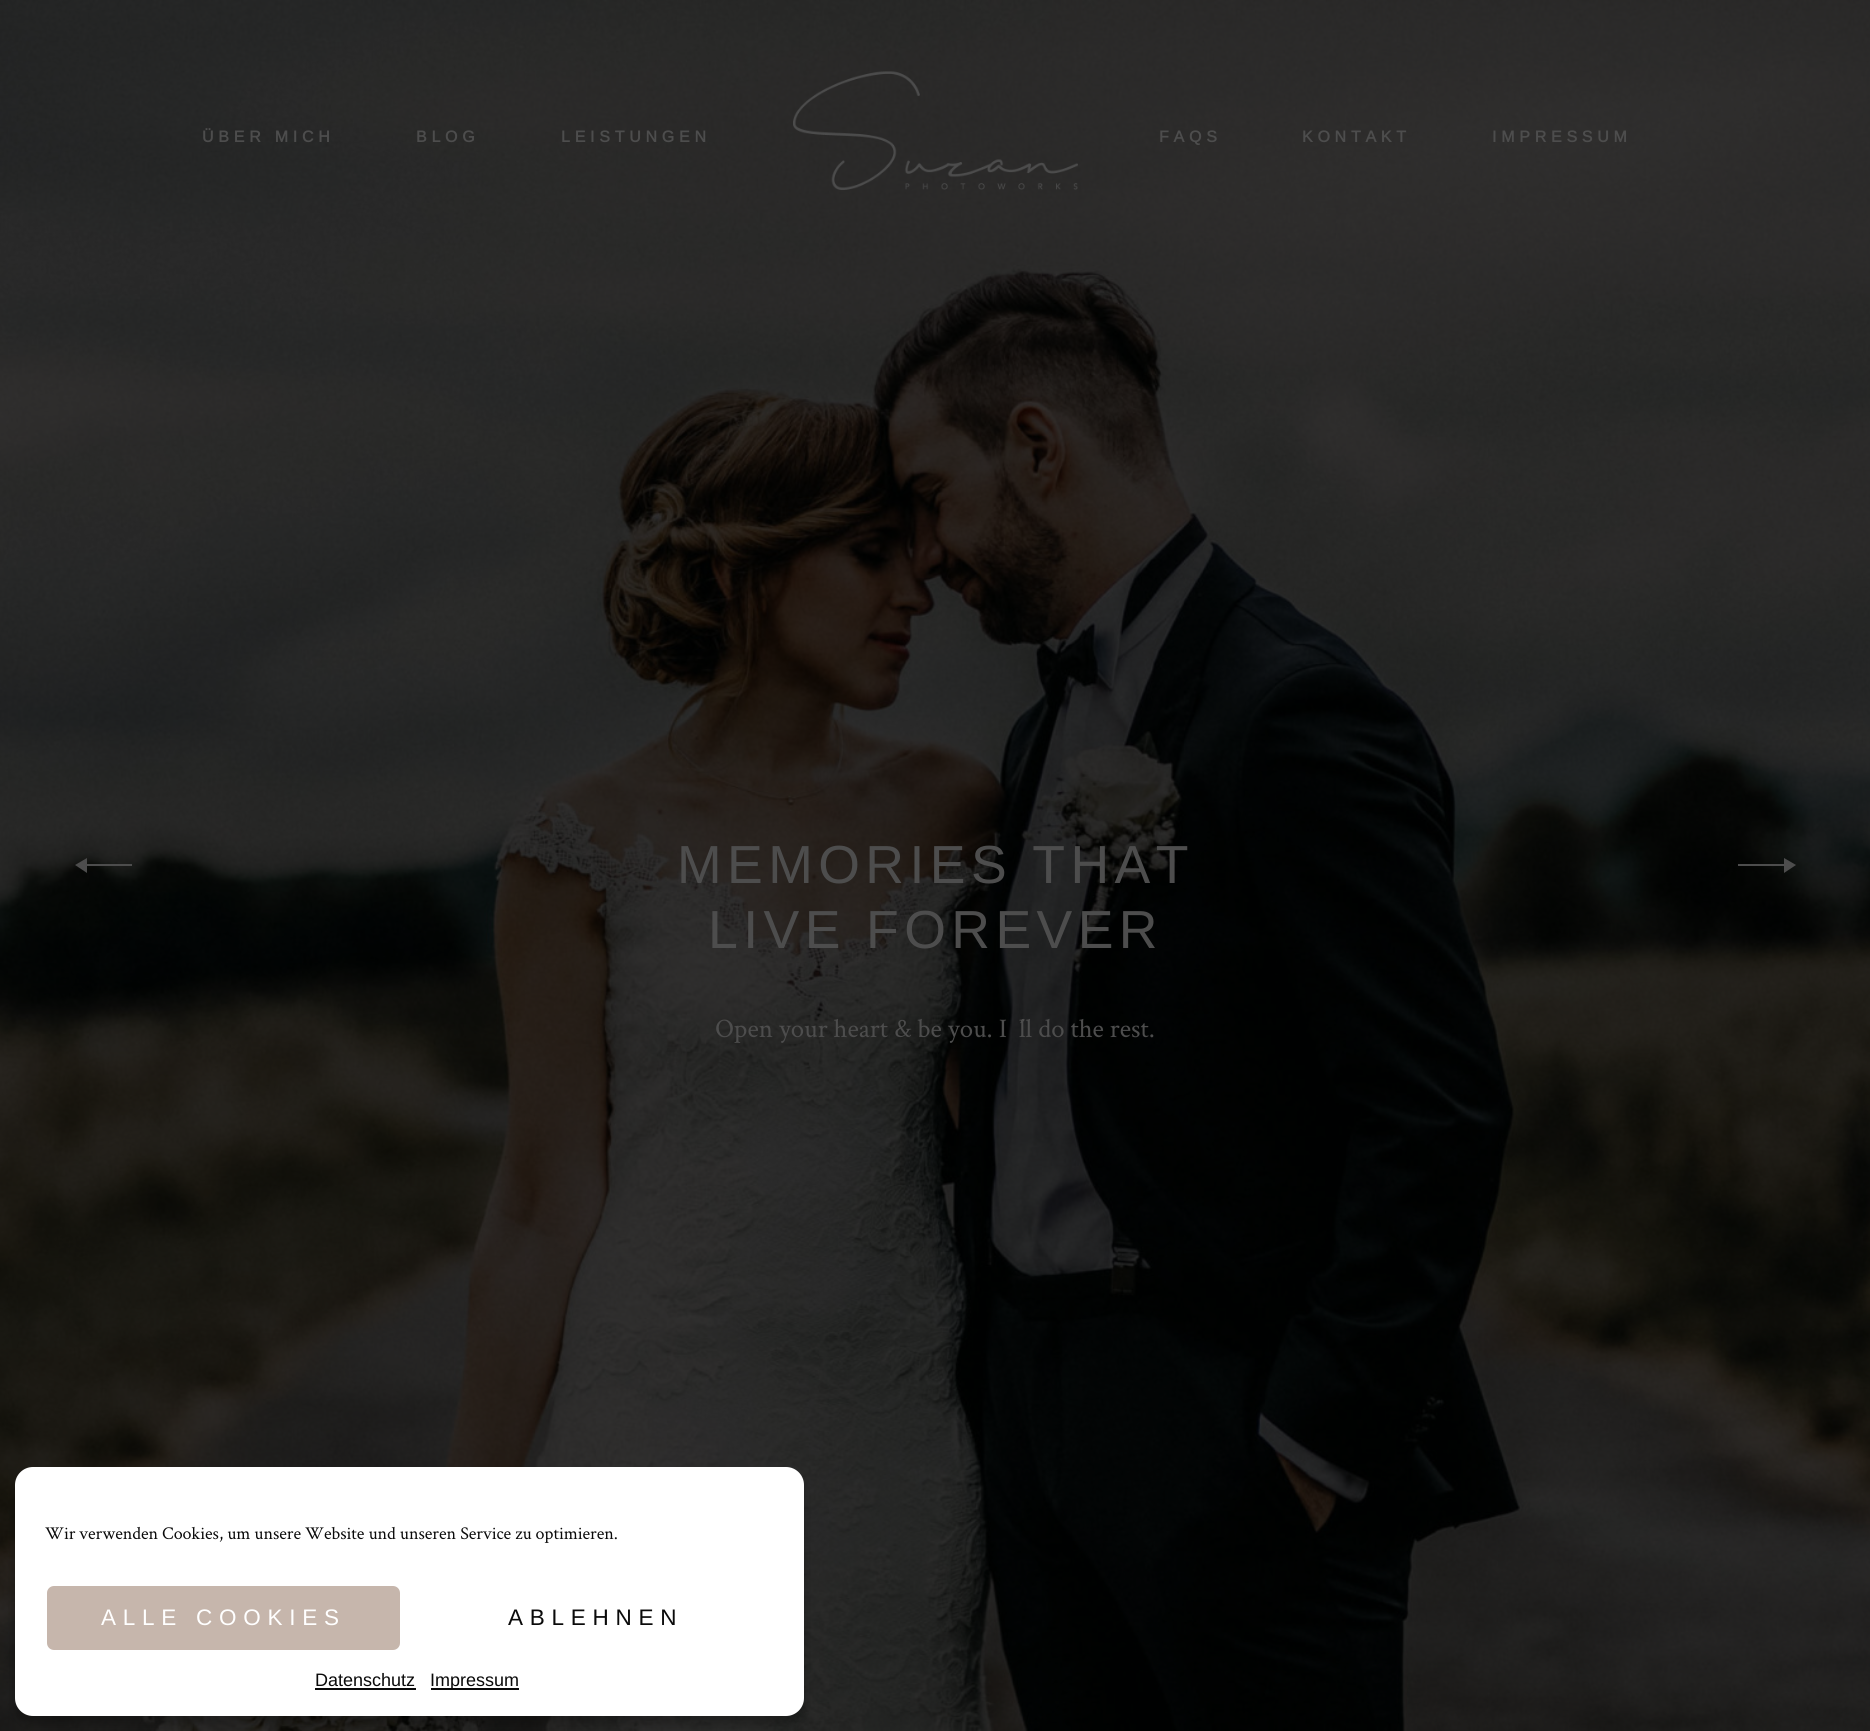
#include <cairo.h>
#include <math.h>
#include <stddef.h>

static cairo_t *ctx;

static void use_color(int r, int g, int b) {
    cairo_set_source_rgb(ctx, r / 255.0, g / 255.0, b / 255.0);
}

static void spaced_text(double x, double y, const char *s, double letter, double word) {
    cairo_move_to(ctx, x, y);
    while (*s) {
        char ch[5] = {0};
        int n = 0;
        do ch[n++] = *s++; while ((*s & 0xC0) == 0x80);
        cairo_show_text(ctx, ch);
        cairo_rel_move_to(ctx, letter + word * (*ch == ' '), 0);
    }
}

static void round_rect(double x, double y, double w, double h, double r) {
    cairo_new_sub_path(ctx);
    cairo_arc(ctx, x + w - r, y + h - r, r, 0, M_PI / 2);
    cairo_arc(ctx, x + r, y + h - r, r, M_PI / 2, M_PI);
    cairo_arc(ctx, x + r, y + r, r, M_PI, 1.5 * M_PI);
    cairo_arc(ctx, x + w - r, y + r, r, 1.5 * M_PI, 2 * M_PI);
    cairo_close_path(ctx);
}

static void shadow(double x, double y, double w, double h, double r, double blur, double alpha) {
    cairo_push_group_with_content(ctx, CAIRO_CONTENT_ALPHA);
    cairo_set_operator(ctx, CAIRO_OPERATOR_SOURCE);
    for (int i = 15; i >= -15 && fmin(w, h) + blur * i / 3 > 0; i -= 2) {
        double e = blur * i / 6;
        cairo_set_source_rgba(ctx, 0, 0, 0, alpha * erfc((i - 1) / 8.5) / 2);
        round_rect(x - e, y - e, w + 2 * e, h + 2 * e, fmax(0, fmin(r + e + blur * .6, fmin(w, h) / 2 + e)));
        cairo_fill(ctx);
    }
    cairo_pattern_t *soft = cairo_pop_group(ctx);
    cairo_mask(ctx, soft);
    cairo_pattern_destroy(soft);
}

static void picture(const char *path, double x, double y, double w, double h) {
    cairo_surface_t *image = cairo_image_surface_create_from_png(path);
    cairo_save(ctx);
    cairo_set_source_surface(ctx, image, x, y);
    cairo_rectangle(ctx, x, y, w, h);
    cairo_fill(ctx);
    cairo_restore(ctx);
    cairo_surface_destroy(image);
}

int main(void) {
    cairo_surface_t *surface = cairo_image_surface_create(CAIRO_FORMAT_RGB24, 1870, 1731);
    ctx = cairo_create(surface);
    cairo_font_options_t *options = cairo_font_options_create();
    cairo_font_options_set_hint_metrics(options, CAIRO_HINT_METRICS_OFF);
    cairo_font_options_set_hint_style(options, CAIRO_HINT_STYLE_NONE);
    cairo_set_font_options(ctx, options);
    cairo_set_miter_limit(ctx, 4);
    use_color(255, 255, 255);
    cairo_paint(ctx);
    picture("img1.png", 0, 0, 1870, 1731);
    cairo_select_font_face(ctx, "Arimo", CAIRO_FONT_SLANT_NORMAL, CAIRO_FONT_WEIGHT_BOLD);
    cairo_set_font_size(ctx, 16);
    use_color(77, 77, 77);
    spaced_text(202, 142, "ÜBER MICH", 4.75, 0);
    spaced_text(416, 142, "BLOG", 4.75, 0);
    spaced_text(561, 142, "LEISTUNGEN", 4.75, 0);
    picture("img2.png", 793, 71, 285, 119);
    spaced_text(1159, 142, "FAQS", 4.75, 0);
    spaced_text(1302, 142, "KONTAKT", 4.75, 0);
    spaced_text(1492, 142, "IMPRESSUM", 4.75, 0);
    cairo_select_font_face(ctx, "Arimo", CAIRO_FONT_SLANT_NORMAL, CAIRO_FONT_WEIGHT_NORMAL);
    cairo_set_font_size(ctx, 53.6);
    spaced_text(677, 883, "MEMORIES THAT", 5.4, 0);
    spaced_text(708, 948, "LIVE FOREVER", 5.4, 0);
    cairo_select_font_face(ctx, "Crimson Text", CAIRO_FONT_SLANT_NORMAL, CAIRO_FONT_WEIGHT_NORMAL);
    cairo_set_font_size(ctx, 26.8);
    cairo_move_to(ctx, 715, 1037);
    cairo_show_text(ctx, "Open your heart & be you. I´ll do the rest.");
    cairo_new_path(ctx);
    cairo_move_to(ctx, 87, 864);
    cairo_line_to(ctx, 132, 864);
    cairo_line_to(ctx, 132, 866);
    cairo_line_to(ctx, 87, 866);
    cairo_line_to(ctx, 87, 873);
    cairo_line_to(ctx, 75, 865);
    cairo_line_to(ctx, 87, 858);
    cairo_close_path(ctx);
    cairo_fill(ctx);
    cairo_new_path(ctx);
    cairo_move_to(ctx, 1784, 864);
    cairo_line_to(ctx, 1738, 864);
    cairo_line_to(ctx, 1738, 866);
    cairo_line_to(ctx, 1784, 866);
    cairo_line_to(ctx, 1784, 873);
    cairo_line_to(ctx, 1796, 865);
    cairo_line_to(ctx, 1784, 858);
    cairo_close_path(ctx);
    cairo_fill(ctx);
    use_color(0, 0, 0);
    shadow(15, 1476, 789, 249, 18, 4.5, 0.23);
    use_color(255, 255, 255);
    round_rect(15, 1467, 789, 249, 18);
    cairo_fill(ctx);
    cairo_set_font_size(ctx, 18);
    use_color(10, 10, 10);
    cairo_move_to(ctx, 45, 1539);
    cairo_show_text(ctx, "Wir verwenden Cookies, um unsere Website und unseren Service zu optimieren.");
    use_color(198, 182, 172);
    round_rect(46, 1585, 355, 66, 8);
    cairo_fill_preserve(ctx);
    use_color(255, 255, 255);
    cairo_stroke(ctx);
    cairo_select_font_face(ctx, "Arimo", CAIRO_FONT_SLANT_NORMAL, CAIRO_FONT_WEIGHT_NORMAL);
    cairo_set_font_size(ctx, 22.5);
    spaced_text(101, 1625, "ALLE COOKIES", 6.75, 0);
    use_color(10, 10, 10);
    spaced_text(508, 1625, "ABLEHNEN", 6.75, 0);
    cairo_select_font_face(ctx, "Liberation Sans", CAIRO_FONT_SLANT_NORMAL, CAIRO_FONT_WEIGHT_NORMAL);
    cairo_set_font_size(ctx, 18);
    cairo_move_to(ctx, 315, 1686);
    cairo_show_text(ctx, "Datenschutz");
    cairo_rectangle(ctx, 315, 1688, 101, 2);
    cairo_fill(ctx);
    cairo_rectangle(ctx, 431, 1688, 88, 2);
    cairo_fill(ctx);
    cairo_move_to(ctx, 430, 1686);
    cairo_show_text(ctx, "Impressum");
    cairo_surface_write_to_png(surface, "result.png");
    cairo_font_options_destroy(options);
    cairo_destroy(ctx);
    cairo_surface_destroy(surface);
    return 0;
}
